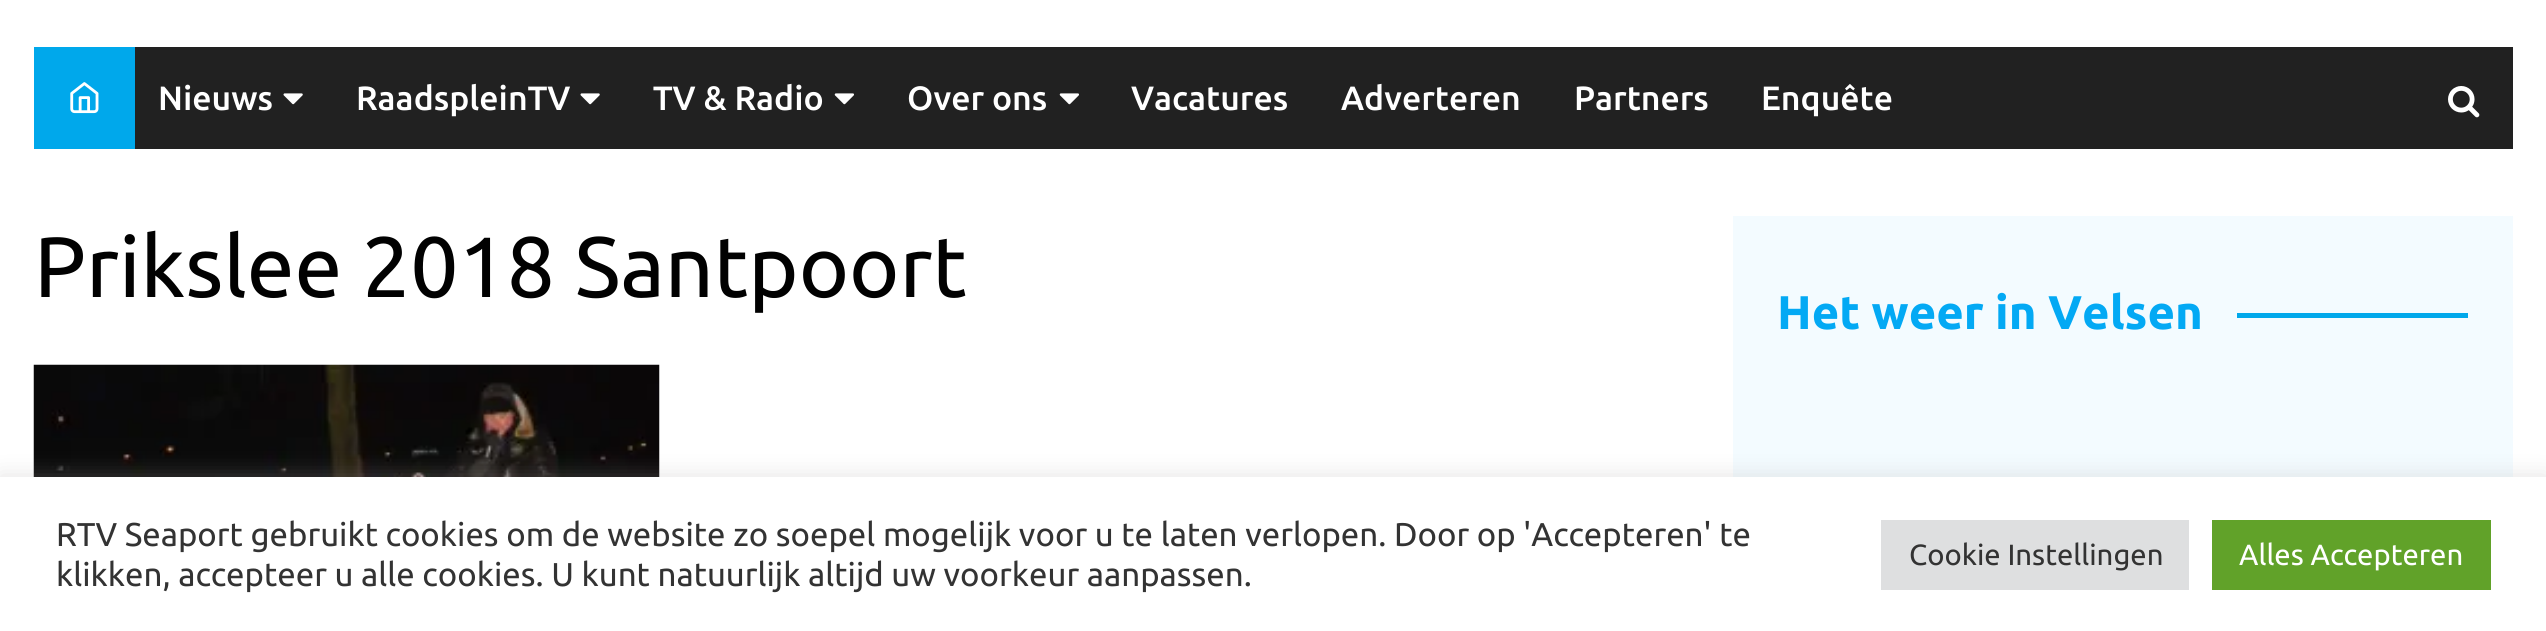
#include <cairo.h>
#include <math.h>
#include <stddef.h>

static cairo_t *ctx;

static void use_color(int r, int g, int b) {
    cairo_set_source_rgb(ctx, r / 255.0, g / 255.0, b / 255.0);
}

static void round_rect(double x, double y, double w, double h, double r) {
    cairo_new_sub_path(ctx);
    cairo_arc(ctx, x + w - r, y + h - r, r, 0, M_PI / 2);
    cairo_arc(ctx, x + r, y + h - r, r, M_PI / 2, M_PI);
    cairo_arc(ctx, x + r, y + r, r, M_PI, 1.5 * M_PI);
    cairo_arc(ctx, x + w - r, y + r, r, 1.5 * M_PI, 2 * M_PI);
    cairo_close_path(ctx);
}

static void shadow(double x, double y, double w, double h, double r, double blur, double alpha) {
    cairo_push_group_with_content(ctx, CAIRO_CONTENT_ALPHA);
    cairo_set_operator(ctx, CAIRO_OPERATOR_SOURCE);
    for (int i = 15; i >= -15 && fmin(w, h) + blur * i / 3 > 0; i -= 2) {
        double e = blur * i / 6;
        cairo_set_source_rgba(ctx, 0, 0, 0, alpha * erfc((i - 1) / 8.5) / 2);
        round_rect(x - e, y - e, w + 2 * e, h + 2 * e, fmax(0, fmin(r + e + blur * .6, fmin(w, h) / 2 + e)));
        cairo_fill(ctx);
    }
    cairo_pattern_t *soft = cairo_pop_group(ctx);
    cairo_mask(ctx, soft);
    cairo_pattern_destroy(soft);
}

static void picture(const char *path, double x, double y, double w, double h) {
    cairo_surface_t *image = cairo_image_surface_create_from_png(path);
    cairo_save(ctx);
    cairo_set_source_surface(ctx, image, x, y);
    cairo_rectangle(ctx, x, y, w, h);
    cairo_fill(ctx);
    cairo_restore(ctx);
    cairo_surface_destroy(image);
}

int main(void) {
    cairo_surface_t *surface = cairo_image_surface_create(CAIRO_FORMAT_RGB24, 2546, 631);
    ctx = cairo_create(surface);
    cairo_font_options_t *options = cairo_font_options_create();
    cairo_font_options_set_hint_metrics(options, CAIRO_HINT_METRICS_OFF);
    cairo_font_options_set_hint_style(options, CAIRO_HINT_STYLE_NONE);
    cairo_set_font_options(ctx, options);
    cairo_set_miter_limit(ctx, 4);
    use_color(255, 255, 255);
    cairo_paint(ctx);
    use_color(33, 33, 33);
    cairo_rectangle(ctx, 135, 47, 2378, 102);
    cairo_fill(ctx);
    use_color(0, 168, 235);
    cairo_rectangle(ctx, 34, 47, 101, 102);
    cairo_fill(ctx);
    picture("img1.png", 70, 82, 29, 32);
    cairo_select_font_face(ctx, "Ubuntu Medium", CAIRO_FONT_SLANT_NORMAL, CAIRO_FONT_WEIGHT_NORMAL);
    cairo_set_font_size(ctx, 33.75);
    use_color(255, 255, 255);
    cairo_move_to(ctx, 158, 110);
    cairo_show_text(ctx, "Nieuws");
    picture("img2.png", 283, 93, 20, 12);
    cairo_move_to(ctx, 356, 110);
    cairo_show_text(ctx, "RaadspleinTV");
    picture("img2.png", 580, 93, 20, 12);
    cairo_move_to(ctx, 653, 110);
    cairo_show_text(ctx, "TV & Radio");
    picture("img3.png", 834, 93, 20, 12);
    cairo_move_to(ctx, 907, 110);
    cairo_show_text(ctx, "Over ons");
    picture("img3.png", 1059, 93, 20, 12);
    cairo_move_to(ctx, 1131, 110);
    cairo_show_text(ctx, "Vacatures");
    cairo_move_to(ctx, 1341, 110);
    cairo_show_text(ctx, "Adverteren");
    cairo_move_to(ctx, 1574, 110);
    cairo_show_text(ctx, "Partners");
    cairo_move_to(ctx, 1761, 110);
    cairo_show_text(ctx, "Enquête");
    picture("img4.png", 2448, 86, 32, 32);
    cairo_select_font_face(ctx, "Ubuntu", CAIRO_FONT_SLANT_NORMAL, CAIRO_FONT_WEIGHT_NORMAL);
    cairo_set_font_size(ctx, 85.5);
    use_color(1, 1, 1);
    cairo_move_to(ctx, 34, 297);
    cairo_show_text(ctx, "Prikslee 2018 Santpoort");
    picture("img5.png", 33, 364, 627, 113);
    use_color(243, 251, 255);
    cairo_rectangle(ctx, 1733, 216, 780, 261);
    cairo_fill(ctx);
    cairo_select_font_face(ctx, "Ubuntu", CAIRO_FONT_SLANT_NORMAL, CAIRO_FONT_WEIGHT_BOLD);
    cairo_set_font_size(ctx, 47.25);
    use_color(3, 169, 244);
    cairo_move_to(ctx, 1777, 329);
    cairo_show_text(ctx, "Het weer in Velsen");
    use_color(0, 168, 235);
    cairo_rectangle(ctx, 2237, 313, 231, 5);
    cairo_fill(ctx);
    use_color(172, 171, 171);
    shadow(0, 475, 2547, 155, 0, 11, 0.3);
    use_color(255, 255, 255);
    cairo_rectangle(ctx, 0, 477, 2546, 154);
    cairo_fill(ctx);
    cairo_select_font_face(ctx, "Ubuntu", CAIRO_FONT_SLANT_NORMAL, CAIRO_FONT_WEIGHT_NORMAL);
    cairo_set_font_size(ctx, 33);
    use_color(51, 51, 51);
    cairo_move_to(ctx, 56, 546);
    cairo_show_text(ctx, "RTV Seaport gebruikt cookies om de website zo soepel mogelijk voor u te laten verlopen. Door op 'Accepteren' te");
    cairo_move_to(ctx, 56, 586);
    cairo_show_text(ctx, "klikken, accepteer u alle cookies. U kunt natuurlijk altijd uw voorkeur aanpassen.");
    use_color(222, 223, 224);
    cairo_rectangle(ctx, 1881, 520, 308, 70);
    cairo_fill(ctx);
    cairo_set_font_size(ctx, 29.25);
    use_color(51, 51, 51);
    cairo_move_to(ctx, 1909, 565);
    cairo_show_text(ctx, "Cookie Instellingen");
    use_color(97, 162, 41);
    cairo_rectangle(ctx, 2212, 520, 279, 70);
    cairo_fill(ctx);
    use_color(255, 255, 255);
    cairo_move_to(ctx, 2239, 565);
    cairo_show_text(ctx, "Alles Accepteren");
    cairo_surface_write_to_png(surface, "result.png");
    cairo_font_options_destroy(options);
    cairo_destroy(ctx);
    cairo_surface_destroy(surface);
    return 0;
}
